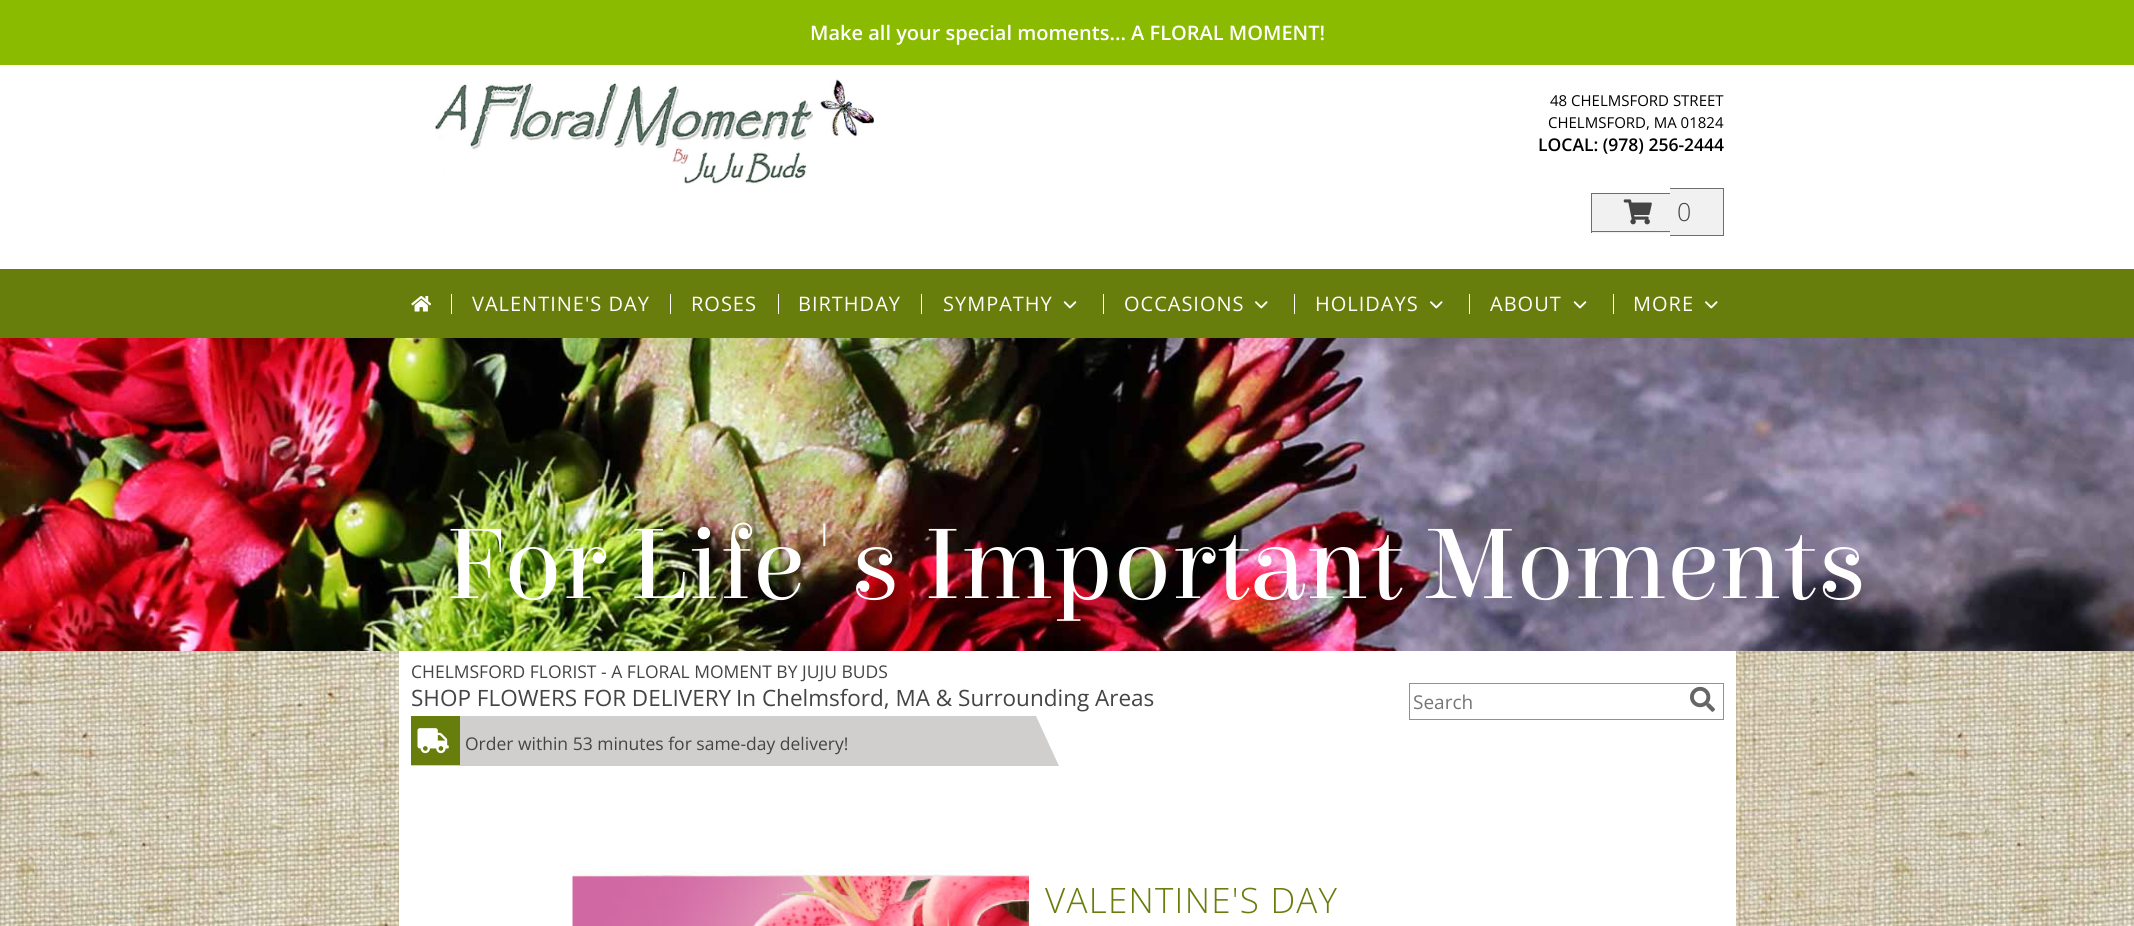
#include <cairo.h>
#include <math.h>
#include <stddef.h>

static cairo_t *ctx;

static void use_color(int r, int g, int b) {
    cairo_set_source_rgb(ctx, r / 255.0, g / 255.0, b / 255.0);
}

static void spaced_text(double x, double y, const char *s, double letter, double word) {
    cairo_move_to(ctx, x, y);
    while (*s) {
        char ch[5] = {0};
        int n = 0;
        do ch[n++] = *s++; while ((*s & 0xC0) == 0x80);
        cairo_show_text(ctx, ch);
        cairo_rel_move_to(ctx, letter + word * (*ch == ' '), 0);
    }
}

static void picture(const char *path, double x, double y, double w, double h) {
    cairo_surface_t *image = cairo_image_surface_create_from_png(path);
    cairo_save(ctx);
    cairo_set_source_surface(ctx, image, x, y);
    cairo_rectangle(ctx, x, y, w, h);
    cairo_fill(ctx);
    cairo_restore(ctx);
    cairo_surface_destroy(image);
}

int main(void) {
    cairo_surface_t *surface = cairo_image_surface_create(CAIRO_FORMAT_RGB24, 2134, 926);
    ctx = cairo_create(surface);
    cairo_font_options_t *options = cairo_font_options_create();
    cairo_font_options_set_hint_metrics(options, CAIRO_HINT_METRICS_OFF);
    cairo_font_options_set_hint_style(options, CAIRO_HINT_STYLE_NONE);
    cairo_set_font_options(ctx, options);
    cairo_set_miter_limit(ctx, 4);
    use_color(255, 255, 255);
    cairo_paint(ctx);
    picture("img1.png", 0, 651, 2134, 275);
    use_color(255, 255, 255);
    cairo_rectangle(ctx, 399, 651, 1337, 275);
    cairo_fill(ctx);
    use_color(138, 187, 0);
    cairo_rectangle(ctx, 0, 0, 2134, 65);
    cairo_fill(ctx);
    cairo_select_font_face(ctx, "Open Sans SemiBold", CAIRO_FONT_SLANT_NORMAL, CAIRO_FONT_WEIGHT_NORMAL);
    cairo_set_font_size(ctx, 20);
    use_color(255, 255, 255);
    cairo_move_to(ctx, 810, 40);
    cairo_show_text(ctx, "Make all your special moments... A FLORAL MOMENT!");
    picture("img2.png", 434, 78, 440, 107);
    cairo_select_font_face(ctx, "Open Sans", CAIRO_FONT_SLANT_NORMAL, CAIRO_FONT_WEIGHT_NORMAL);
    cairo_set_font_size(ctx, 15);
    use_color(0, 0, 0);
    cairo_move_to(ctx, 1550, 106);
    cairo_show_text(ctx, "48 CHELMSFORD STREET");
    cairo_move_to(ctx, 1548, 128);
    cairo_show_text(ctx, "CHELMSFORD, MA 01824");
    cairo_select_font_face(ctx, "Open Sans SemiBold", CAIRO_FONT_SLANT_NORMAL, CAIRO_FONT_WEIGHT_NORMAL);
    cairo_set_font_size(ctx, 17.5);
    cairo_move_to(ctx, 1538, 151);
    cairo_show_text(ctx, "LOCAL: (978) 256-2444");
    use_color(241, 241, 241);
    cairo_rectangle(ctx, 1592, 194, 78, 39);
    cairo_fill(ctx);
    use_color(110, 110, 110);
    cairo_rectangle(ctx, 1591, 193, 79, 1);
    cairo_fill(ctx);
    cairo_rectangle(ctx, 1591, 231, 79, 1);
    cairo_fill(ctx);
    cairo_rectangle(ctx, 1591, 193, 1, 40);
    cairo_fill(ctx);
    use_color(241, 241, 241);
    cairo_rectangle(ctx, 1670, 188, 8, 48);
    cairo_fill(ctx);
    use_color(110, 110, 110);
    cairo_rectangle(ctx, 1670, 188, 54, 1);
    cairo_fill(ctx);
    cairo_rectangle(ctx, 1670, 235, 8, 1);
    cairo_fill(ctx);
    use_color(241, 241, 241);
    cairo_rectangle(ctx, 1678, 189, 45, 46);
    cairo_fill(ctx);
    use_color(110, 110, 110);
    cairo_rectangle(ctx, 1723, 188, 1, 48);
    cairo_fill(ctx);
    cairo_rectangle(ctx, 1678, 235, 46, 1);
    cairo_fill(ctx);
    picture("img3.png", 1623, 199, 29, 26);
    cairo_select_font_face(ctx, "Open Sans Light", CAIRO_FONT_SLANT_NORMAL, CAIRO_FONT_WEIGHT_NORMAL);
    cairo_set_font_size(ctx, 25);
    use_color(68, 68, 68);
    cairo_move_to(ctx, 1677, 221);
    cairo_show_text(ctx, "0");
    use_color(103, 125, 12);
    cairo_rectangle(ctx, 0, 269, 2134, 69);
    cairo_fill(ctx);
    picture("img4.png", 411, 296, 20, 16);
    use_color(255, 255, 255);
    cairo_rectangle(ctx, 451, 294, 1, 20);
    cairo_fill(ctx);
    cairo_select_font_face(ctx, "Open Sans", CAIRO_FONT_SLANT_NORMAL, CAIRO_FONT_WEIGHT_NORMAL);
    cairo_set_font_size(ctx, 20);
    spaced_text(472, 311, "VALENTINE'S DAY", 1, 0);
    cairo_rectangle(ctx, 670, 294, 1, 20);
    cairo_fill(ctx);
    spaced_text(691, 311, "ROSES", 1, 0);
    cairo_rectangle(ctx, 778, 294, 1, 20);
    cairo_fill(ctx);
    spaced_text(798, 311, "BIRTHDAY", 1, 0);
    cairo_rectangle(ctx, 921, 294, 1, 20);
    cairo_fill(ctx);
    spaced_text(943, 311, "SYMPATHY", 1, 0);
    picture("img5.png", 1063, 301, 14, 8);
    cairo_rectangle(ctx, 1103, 294, 1, 20);
    cairo_fill(ctx);
    spaced_text(1124, 311, "OCCASIONS", 1, 0);
    picture("img6.png", 1255, 301, 13, 8);
    cairo_rectangle(ctx, 1294, 294, 1, 20);
    cairo_fill(ctx);
    spaced_text(1315, 311, "HOLIDAYS", 1, 0);
    picture("img6.png", 1430, 301, 13, 8);
    cairo_rectangle(ctx, 1469, 294, 1, 20);
    cairo_fill(ctx);
    spaced_text(1490, 311, "ABOUT", 1, 0);
    picture("img5.png", 1573, 301, 14, 8);
    cairo_rectangle(ctx, 1613, 294, 1, 20);
    cairo_fill(ctx);
    spaced_text(1633, 311, "MORE", 1, 0);
    picture("img6.png", 1705, 301, 13, 8);
    picture("img7.png", 0, 338, 2134, 313);
    cairo_select_font_face(ctx, "Elsie", CAIRO_FONT_SLANT_NORMAL, CAIRO_FONT_WEIGHT_NORMAL);
    cairo_set_font_size(ctx, 106.25);
    cairo_move_to(ctx, 445, 598);
    cairo_show_text(ctx, "For Life's Important Moments");
    cairo_select_font_face(ctx, "Open Sans", CAIRO_FONT_SLANT_NORMAL, CAIRO_FONT_WEIGHT_NORMAL);
    cairo_set_font_size(ctx, 17.5);
    use_color(68, 68, 68);
    cairo_move_to(ctx, 411, 678);
    cairo_show_text(ctx, "CHELMSFORD FLORIST - A FLORAL MOMENT BY JUJU BUDS");
    cairo_set_font_size(ctx, 22.5);
    cairo_move_to(ctx, 411, 706);
    cairo_show_text(ctx, "SHOP FLOWERS FOR DELIVERY");
    cairo_move_to(ctx, 736, 706);
    cairo_show_text(ctx, "In Chelmsford, MA & Surrounding Areas");
    cairo_rectangle(ctx, 1409.5, 683.5, 314, 36);
    use_color(145, 145, 145);
    cairo_set_line_width(ctx, 1);
    cairo_stroke(ctx);
    cairo_set_font_size(ctx, 19);
    use_color(117, 117, 117);
    cairo_move_to(ctx, 1413, 709);
    cairo_show_text(ctx, "Search");
    picture("img8.png", 1690, 686, 25, 26);
    use_color(208, 207, 205);
    cairo_new_path(ctx);
    cairo_move_to(ctx, 1059, 766);
    cairo_line_to(ctx, 411, 766);
    cairo_line_to(ctx, 411, 716);
    cairo_line_to(ctx, 1036, 716);
    cairo_close_path(ctx);
    cairo_fill(ctx);
    use_color(103, 125, 12);
    cairo_rectangle(ctx, 411, 716, 49, 49);
    cairo_fill(ctx);
    picture("img9.png", 417, 728, 32, 26);
    cairo_set_font_size(ctx, 17.5);
    use_color(68, 68, 68);
    cairo_move_to(ctx, 465, 750);
    cairo_show_text(ctx, "Order within 53 minutes for same-day delivery!");
    picture("img10.png", 572, 869, 457, 57);
    cairo_select_font_face(ctx, "Open Sans Light", CAIRO_FONT_SLANT_NORMAL, CAIRO_FONT_WEIGHT_NORMAL);
    cairo_set_font_size(ctx, 35);
    use_color(103, 125, 12);
    spaced_text(1045, 913, "VALENTINE'S DAY", 1.25, 0);
    cairo_surface_write_to_png(surface, "result.png");
    cairo_font_options_destroy(options);
    cairo_destroy(ctx);
    cairo_surface_destroy(surface);
    return 0;
}
